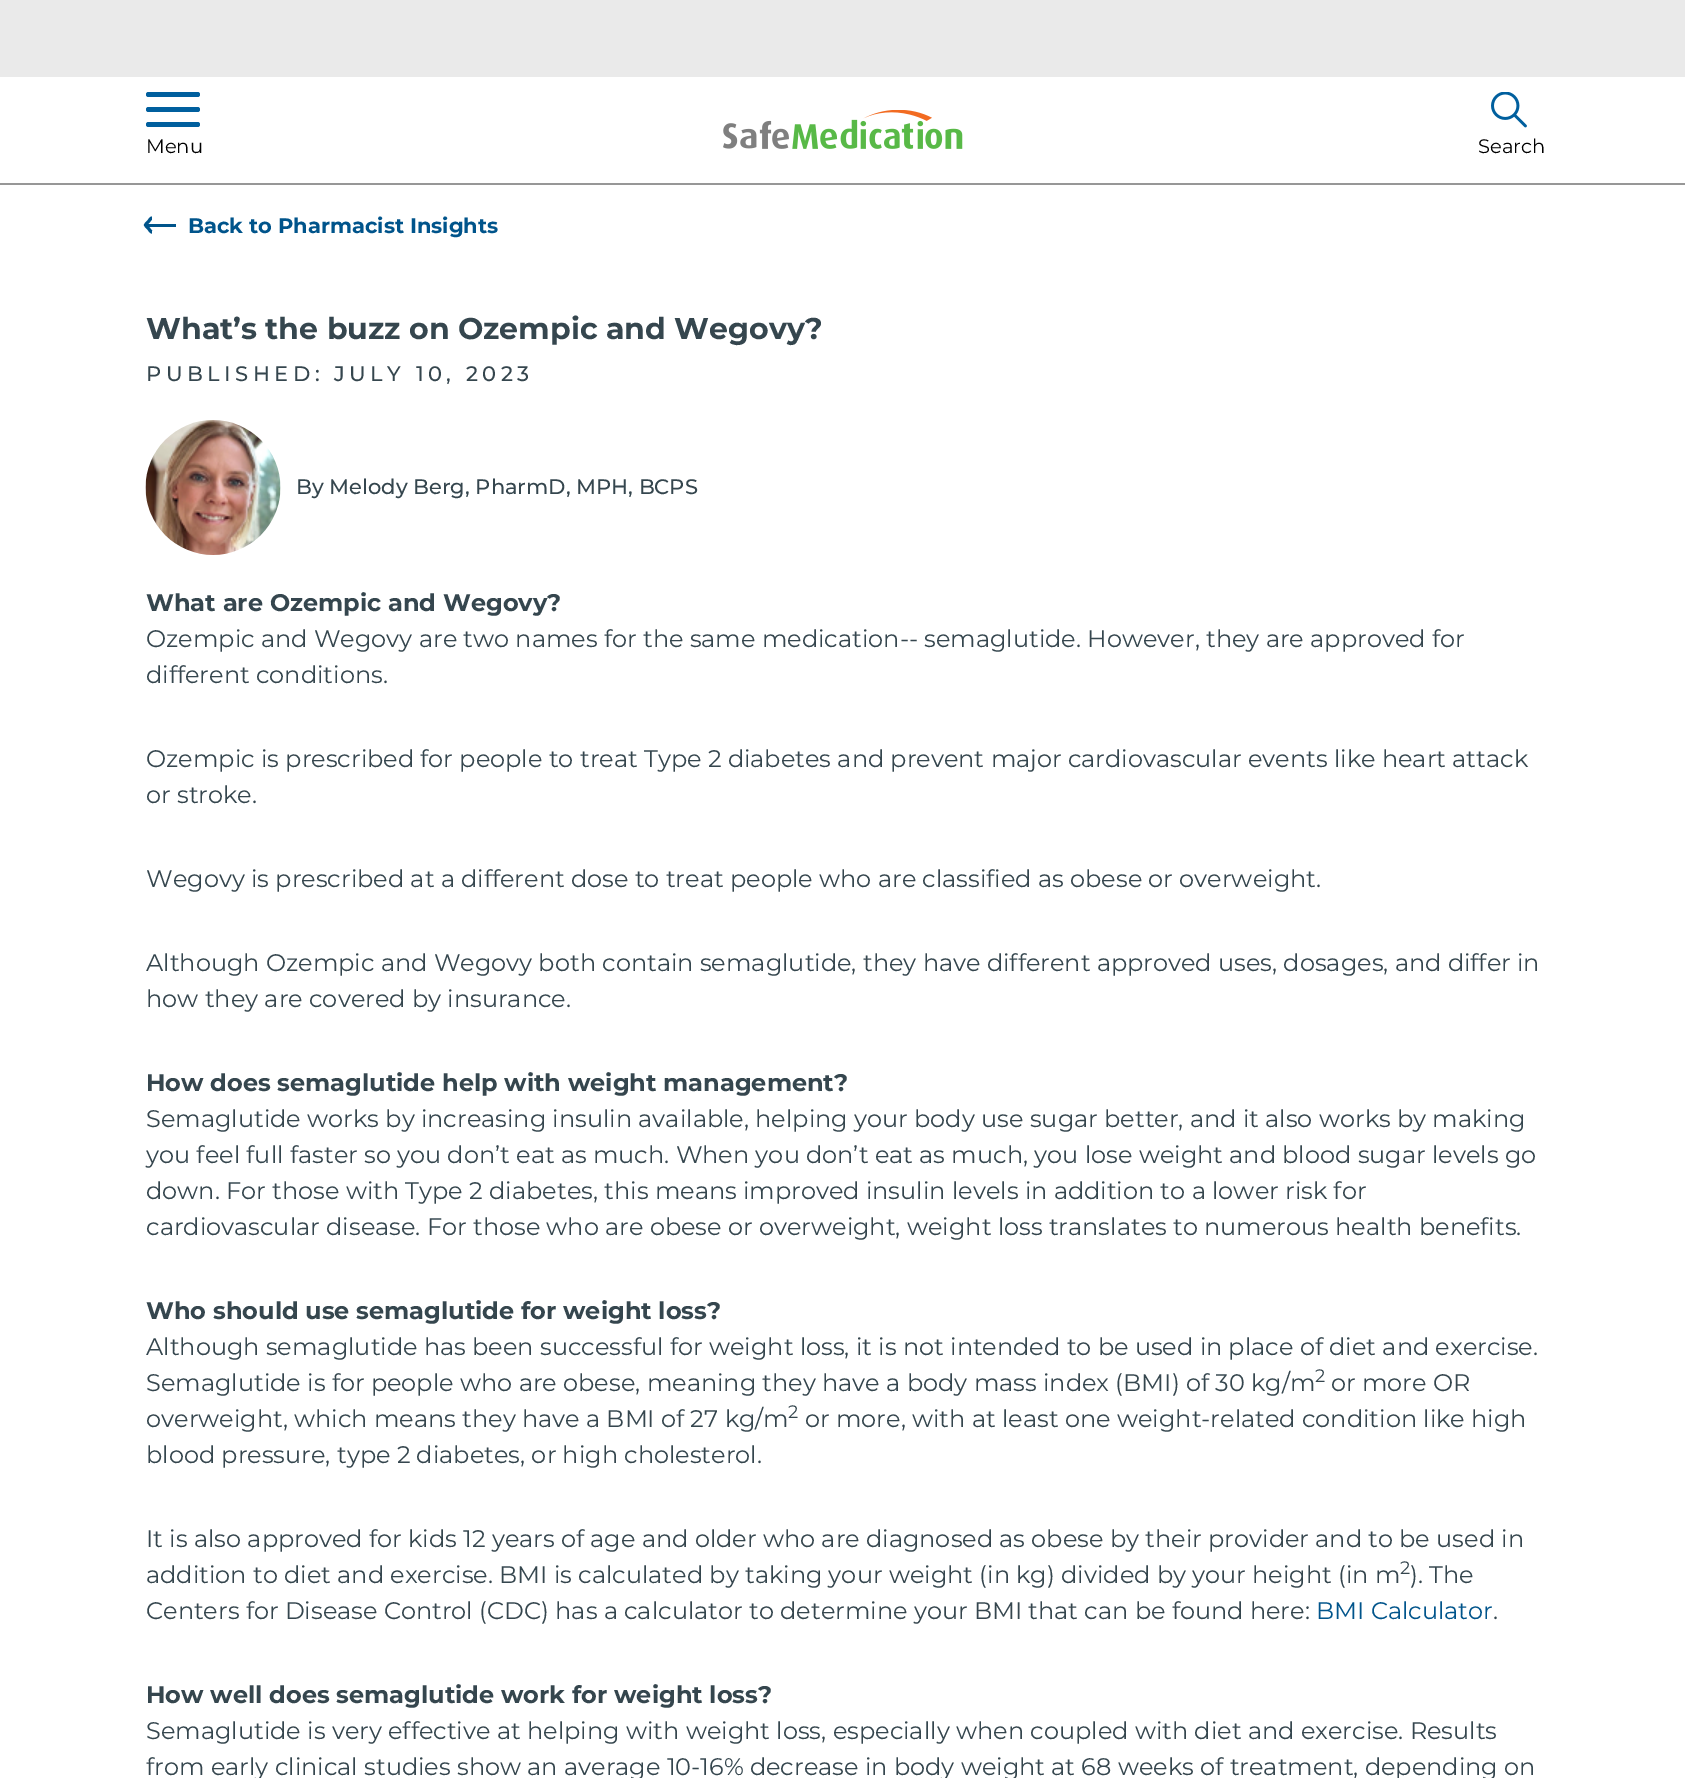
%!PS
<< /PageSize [1685 1778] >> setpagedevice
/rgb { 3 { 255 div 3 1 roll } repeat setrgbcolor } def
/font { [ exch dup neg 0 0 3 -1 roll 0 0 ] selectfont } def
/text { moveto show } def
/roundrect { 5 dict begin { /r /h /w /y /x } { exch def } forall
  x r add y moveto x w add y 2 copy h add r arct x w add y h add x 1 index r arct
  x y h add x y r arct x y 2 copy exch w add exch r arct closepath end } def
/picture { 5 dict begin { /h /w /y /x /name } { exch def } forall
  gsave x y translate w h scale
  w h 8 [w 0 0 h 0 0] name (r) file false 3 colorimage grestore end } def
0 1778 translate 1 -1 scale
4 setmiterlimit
255 255 255 rgb
0 0 1685 1778 rectfill
234 234 234 rgb
0 0 1685 77 rectfill
151 151 151 rgb
0 183 1685 2 rectfill
(img_01.rgb) 723 110 240 39 picture
0 95 158 rgb
146 92 54 5 2.5 roundrect fill
146 107 54 5 2.5 roundrect fill
146 122 54 5 2.5 roundrect fill
(img_02.rgb) 1491 92 36 36 picture
0 84 139 rgb
3 setlinewidth
152 232 moveto -1.5 0 -2.5 -2.5 -3.5 -3.5 rcurveto -4 -4 -4 -3 0 -7 rcurveto 1 -1 2 -3.5 3.5 -3.5 rcurveto stroke
146 224 30 3 rectfill
(img_03.rgb) 145 420 136 135 picture
/Montserrat-Regular 19.5 font
0 0 0 rgb
(Menu) 146 153 text
(Search) 1478 153 text
/Montserrat-Bold 21 font
0 84 139 rgb
(Back to Pharmacist Insights) 188 233 text
/Montserrat-Bold 30 font
53 70 78 rgb
(What’s the buzz on Ozempic and Wegovy?) 146 339 text
/Montserrat-Medium 21 font
146 381 moveto 4.5 0 (PUBLISHED: JULY 10, 2023) ashow
(By Melody Berg, PharmD, MPH, BCPS) 296 494 text
/Montserrat-Bold 24 font
(What are Ozempic and Wegovy?) 146 611 text
/Montserrat-Regular 24 font
(Ozempic and Wegovy are two names for the same medication-- semaglutide. However, they are approved for) 146 647 text
(different conditions.) 146 683 text
(Ozempic is prescribed for people to treat Type 2 diabetes and prevent major cardiovascular events like heart attack) 146 767 text
(or stroke.) 146 803 text
(Wegovy is prescribed at a different dose to treat people who are classified as obese or overweight.) 146 887 text
(Although Ozempic and Wegovy both contain semaglutide, they have different approved uses, dosages, and differ in) 146 971 text
(how they are covered by insurance.) 146 1007 text
/Montserrat-Bold 24 font
(How does semaglutide help with weight management?) 146 1091 text
/Montserrat-Regular 24 font
(Semaglutide works by increasing insulin available, helping your body use sugar better, and it also works by making) 146 1127 text
(you feel full faster so you don’t eat as much. When you don’t eat as much, you lose weight and blood sugar levels go) 146 1163 text
(down. For those with Type 2 diabetes, this means improved insulin levels in addition to a lower risk for) 146 1199 text
(cardiovascular disease. For those who are obese or overweight, weight loss translates to numerous health benefits.) 146 1235 text
/Montserrat-Bold 24 font
(Who should use semaglutide for weight loss?) 146 1319 text
/Montserrat-Regular 24 font
(Although semaglutide has been successful for weight loss, it is not intended to be used in place of diet and exercise.) 146 1355 text
(Semaglutide is for people who are obese, meaning they have a body mass index \(BMI\) of 30 kg/m) 146 1391 text
/Montserrat-Regular 18 font
(2) 1315 1382 text
/Montserrat-Regular 24 font
(or more OR) 1331 1391 text
(overweight, which means they have a BMI of 27 kg/m) 146 1427 text
/Montserrat-Regular 18 font
(2) 788 1418 text
/Montserrat-Regular 24 font
(or more, with at least one weight-related condition like high) 805 1427 text
(blood pressure, type 2 diabetes, or high cholesterol.) 146 1463 text
(It is also approved for kids 12 years of age and older who are diagnosed as obese by their provider and to be used in) 146 1547 text
(addition to diet and exercise. BMI is calculated by taking your weight \(in kg\) divided by your height \(in m) 146 1583 text
/Montserrat-Regular 18 font
(2) 1400 1574 text
/Montserrat-Regular 24 font
(\). The) 1410 1583 text
(Centers for Disease Control \(CDC\) has a calculator to determine your BMI that can be found here:) 146 1619 text
0 84 139 rgb
(BMI Calculator) 1316 1619 text
53 70 78 rgb
(.) 1493 1619 text
/Montserrat-Bold 24 font
(How well does semaglutide work for weight loss?) 146 1703 text
/Montserrat-Regular 24 font
(Semaglutide is very effective at helping with weight loss, especially when coupled with diet and exercise. Results) 146 1739 text
(from early clinical studies show an average 10-16% decrease in body weight at 68 weeks of treatment, depending on) 146 1775 text
showpage
